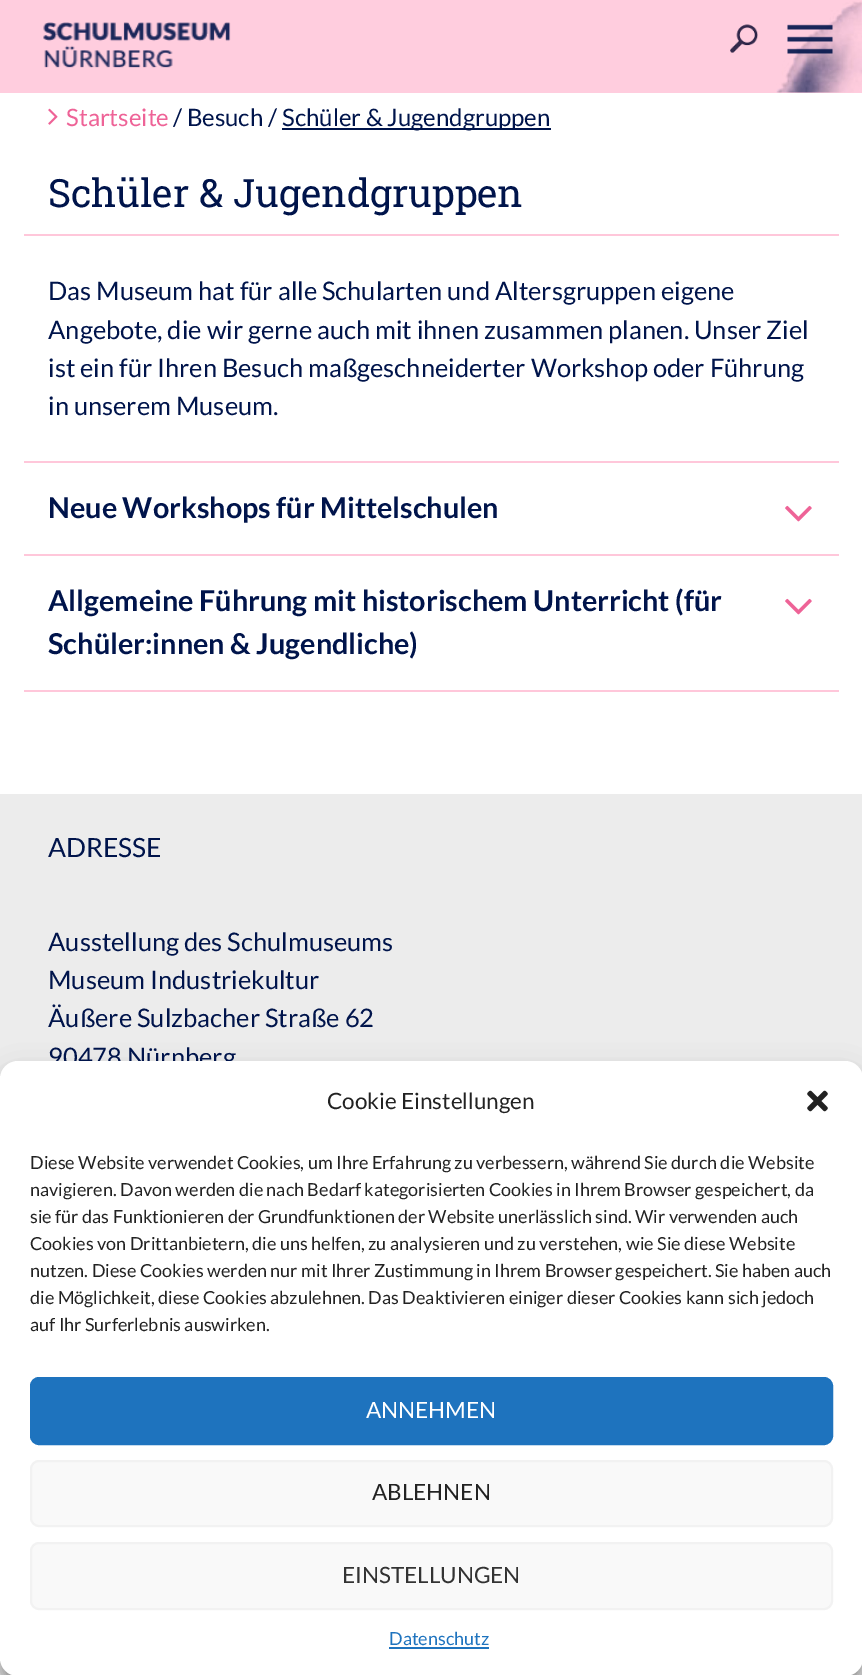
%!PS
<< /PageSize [862 1675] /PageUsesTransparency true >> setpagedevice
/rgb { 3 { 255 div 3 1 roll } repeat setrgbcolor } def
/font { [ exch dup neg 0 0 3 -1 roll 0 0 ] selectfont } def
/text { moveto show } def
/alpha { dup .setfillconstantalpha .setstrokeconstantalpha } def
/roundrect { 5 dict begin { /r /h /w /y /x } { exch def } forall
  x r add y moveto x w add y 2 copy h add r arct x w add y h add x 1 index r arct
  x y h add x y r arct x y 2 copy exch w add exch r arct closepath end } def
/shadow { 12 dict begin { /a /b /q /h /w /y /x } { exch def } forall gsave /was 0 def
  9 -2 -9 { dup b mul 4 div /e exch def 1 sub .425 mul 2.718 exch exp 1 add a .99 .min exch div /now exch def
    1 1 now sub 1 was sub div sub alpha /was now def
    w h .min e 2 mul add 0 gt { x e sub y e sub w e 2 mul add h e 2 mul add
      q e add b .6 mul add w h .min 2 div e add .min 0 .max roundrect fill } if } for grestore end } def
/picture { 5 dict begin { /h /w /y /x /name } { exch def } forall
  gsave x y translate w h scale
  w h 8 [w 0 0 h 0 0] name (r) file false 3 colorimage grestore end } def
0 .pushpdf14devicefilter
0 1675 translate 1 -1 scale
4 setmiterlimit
255 255 255 rgb
0 0 862 1675 rectfill
255 205 222 rgb
0 0 862 93 rectfill
(img_01.rgb) 776 1 86 92 picture
(img_02.rgb) 43 22 188 46 picture
(img_03.rgb) 730 24 28 29 picture
(img_04.rgb) 787 24 46 30 picture
(img_05.rgb) 48 108 10 17 picture
0 20 75 rgb
282 128 269 2 rectfill
255 199 218 rgb
24 234 815 2 rectfill
24 690 815 2 rectfill
24 461 815 2 rectfill
(img_06.rgb) 785 505 27 17 picture
24 554 815 2 rectfill
(img_06.rgb) 785 598 27 17 picture
236 236 236 rgb
0 794 862 881 rectfill
0 0 0 rgb
0 1070 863 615 18 4.5 0.23 shadow
0 1076 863 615 18 15 0.19 shadow
/Lato-Regular 24 font
238 99 151 rgb
(Startseite) 66 126 text
0 20 75 rgb
(/ Besuch /) 173 126 text
(Schüler & Jugendgruppen) 282 126 text
/RobotoSlab-Regular 39 font
(Schüler & Jugendgruppen) 48 207 text
/Lato-Regular 25.5 font
(Das Museum hat für alle Schularten und Altersgruppen eigene) 48 300 text
(Angebote, die wir gerne auch mit ihnen zusammen planen. Unser Ziel) 48 339 text
(ist ein für Ihren Besuch maßgeschneiderter Workshop oder Führung) 48 377 text
(in unserem Museum.) 48 415 text
/Lato-Bold 28.8 font
(Neue Workshops für Mittelschulen) 48 518 text
(Allgemeine Führung mit historischem Unterricht \(für) 48 611 text
(Schüler:innen & Jugendliche\)) 48 654 text
/Lato-Regular 26.5 font
(ADRESSE) 48 857 text
/Lato-Regular 25.5 font
(Ausstellung des Schulmuseums) 48 951 text
(Museum Industriekultur) 48 989 text
(Äußere Sulzbacher Straße 62) 48 1027 text
(90478 Nürnberg) 48 1066 text
255 255 255 rgb
0 1061 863 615 18 roundrect fill
/Lato-Regular 22.5 font
34 34 34 rgb
(Cookie Einstellungen) 327 1109 text
(img_07.rgb) 807 1090 21 22 picture
/Lato-Regular 18 font
(Diese Website verwendet Cookies, um Ihre Erfahrung zu verbessern, während Sie durch die Website) 30 1169 text
(navigieren. Davon werden die nach Bedarf kategorisierten Cookies in Ihrem Browser gespeichert, da) 30 1196 text
(sie für das Funktionieren der Grundfunktionen der Website unerlässlich sind. Wir verwenden auch) 30 1223 text
(Cookies von Drittanbietern, die uns helfen, zu analysieren und zu verstehen, wie Sie diese Website) 30 1250 text
(nutzen. Diese Cookies werden nur mit Ihrer Zustimmung in Ihrem Browser gespeichert. Sie haben auch) 30 1277 text
(die Möglichkeit, diese Cookies abzulehnen. Das Deaktivieren einiger dieser Cookies kann sich jedoch) 30 1304 text
(auf Ihr Surferlebnis auswirken.) 30 1331 text
30 115 190 rgb
31 1378 801 66 8 roundrect gsave fill grestore
2 setlinewidth
stroke
/Lato-Regular 22.5 font
255 255 255 rgb
(ANNEHMEN) 366 1418 text
249 249 249 rgb
31 1461 801 65 8 roundrect gsave fill grestore
242 242 242 rgb
stroke
34 34 34 rgb
(ABLEHNEN) 372 1500 text
249 249 249 rgb
31 1543 801 66 8 roundrect gsave fill grestore
242 242 242 rgb
stroke
51 51 51 rgb
(EINSTELLUNGEN) 342 1583 text
/Lato-Regular 18 font
30 115 190 rgb
(Datenschutz) 389 1645 text
389 1647 100 2 rectfill
.poppdf14devicefilter showpage
